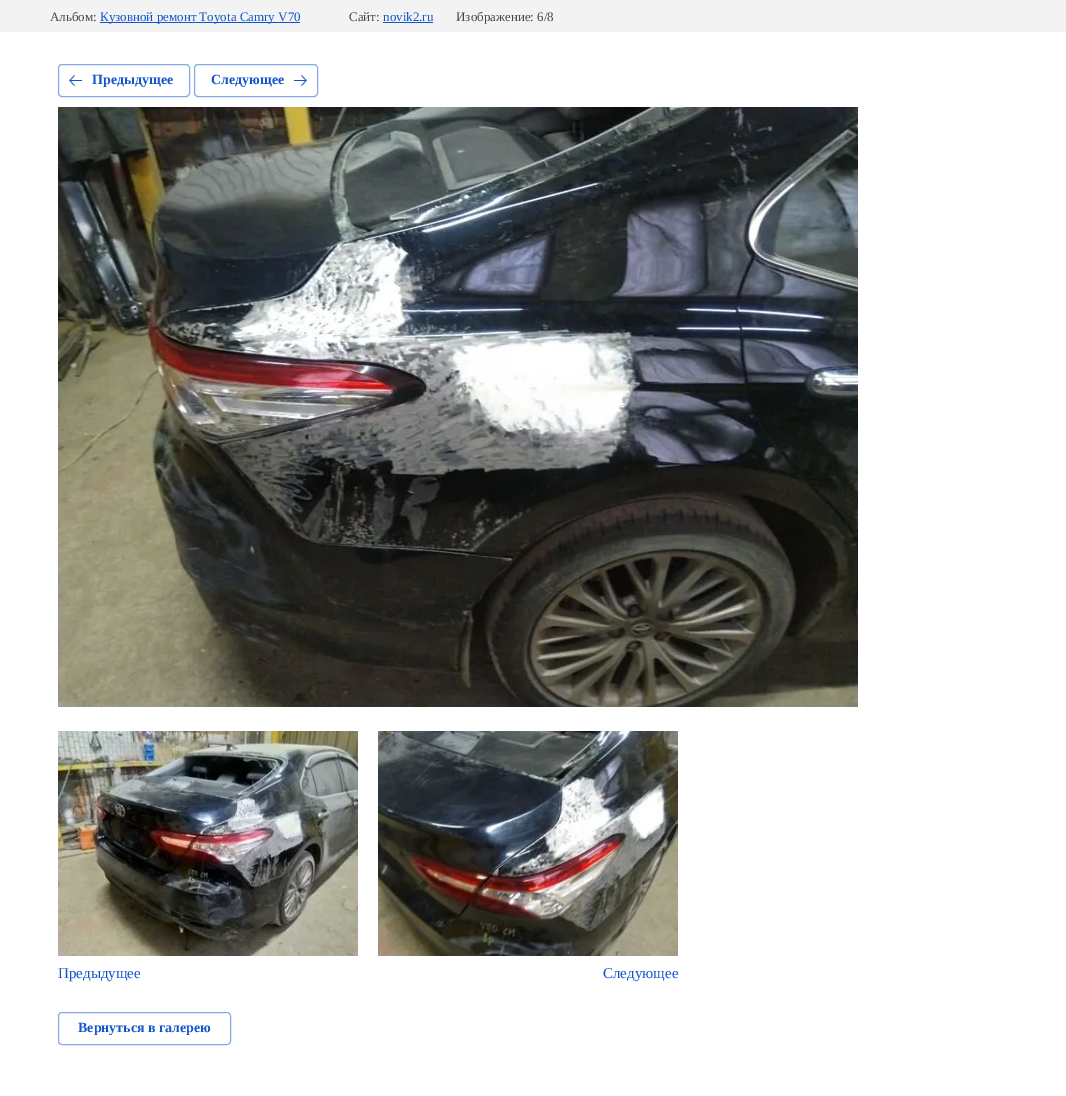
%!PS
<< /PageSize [1066 1096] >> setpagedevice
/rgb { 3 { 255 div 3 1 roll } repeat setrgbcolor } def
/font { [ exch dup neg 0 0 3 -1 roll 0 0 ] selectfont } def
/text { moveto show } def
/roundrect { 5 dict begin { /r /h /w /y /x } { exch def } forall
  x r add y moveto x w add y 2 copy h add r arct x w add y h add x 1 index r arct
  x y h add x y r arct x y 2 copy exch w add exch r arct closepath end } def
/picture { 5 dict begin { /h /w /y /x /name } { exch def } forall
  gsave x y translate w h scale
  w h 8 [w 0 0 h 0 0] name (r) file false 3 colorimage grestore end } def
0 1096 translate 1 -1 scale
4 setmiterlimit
255 255 255 rgb
0 0 1066 1096 rectfill
243 243 243 rgb
0 0 1066 32 rectfill
17 85 204 rgb
100 22 200 1 rectfill
383 22 50 1 rectfill
136 170 230 rgb
58.5 64.5 131 32 3.5 roundrect stroke
(img_01.rgb) 69 75 13 11 picture
194.5 64.5 123 32 3.5 roundrect stroke
(img_02.rgb) 294 75 13 11 picture
(img_03.rgb) 58 107 800 600 picture
(img_04.rgb) 58 731 300 225 picture
(img_05.rgb) 378 731 300 225 picture
58.5 1012.5 172 32 3.5 roundrect stroke
/LiberationSerif-Regular 13 font
72 72 72 rgb
(Альбом:) 50 21 text
17 85 204 rgb
(Кузовной ремонт Toyota Camry V70) 100 21 text
72 72 72 rgb
(Сайт:) 349 21 text
17 85 204 rgb
(novik2.ru) 383 21 text
72 72 72 rgb
(Изображение: 6/8) 456 21 text
/LiberationSerif-Bold 14 font
17 85 204 rgb
(Предыдущее) 92 84 text
(Следующее) 211 84 text
/LiberationSerif-Regular 15 font
(Предыдущее) 58 978 text
(Следующее) 603 978 text
/LiberationSerif-Bold 14 font
(Вернуться в галерею) 78 1032 text
showpage
